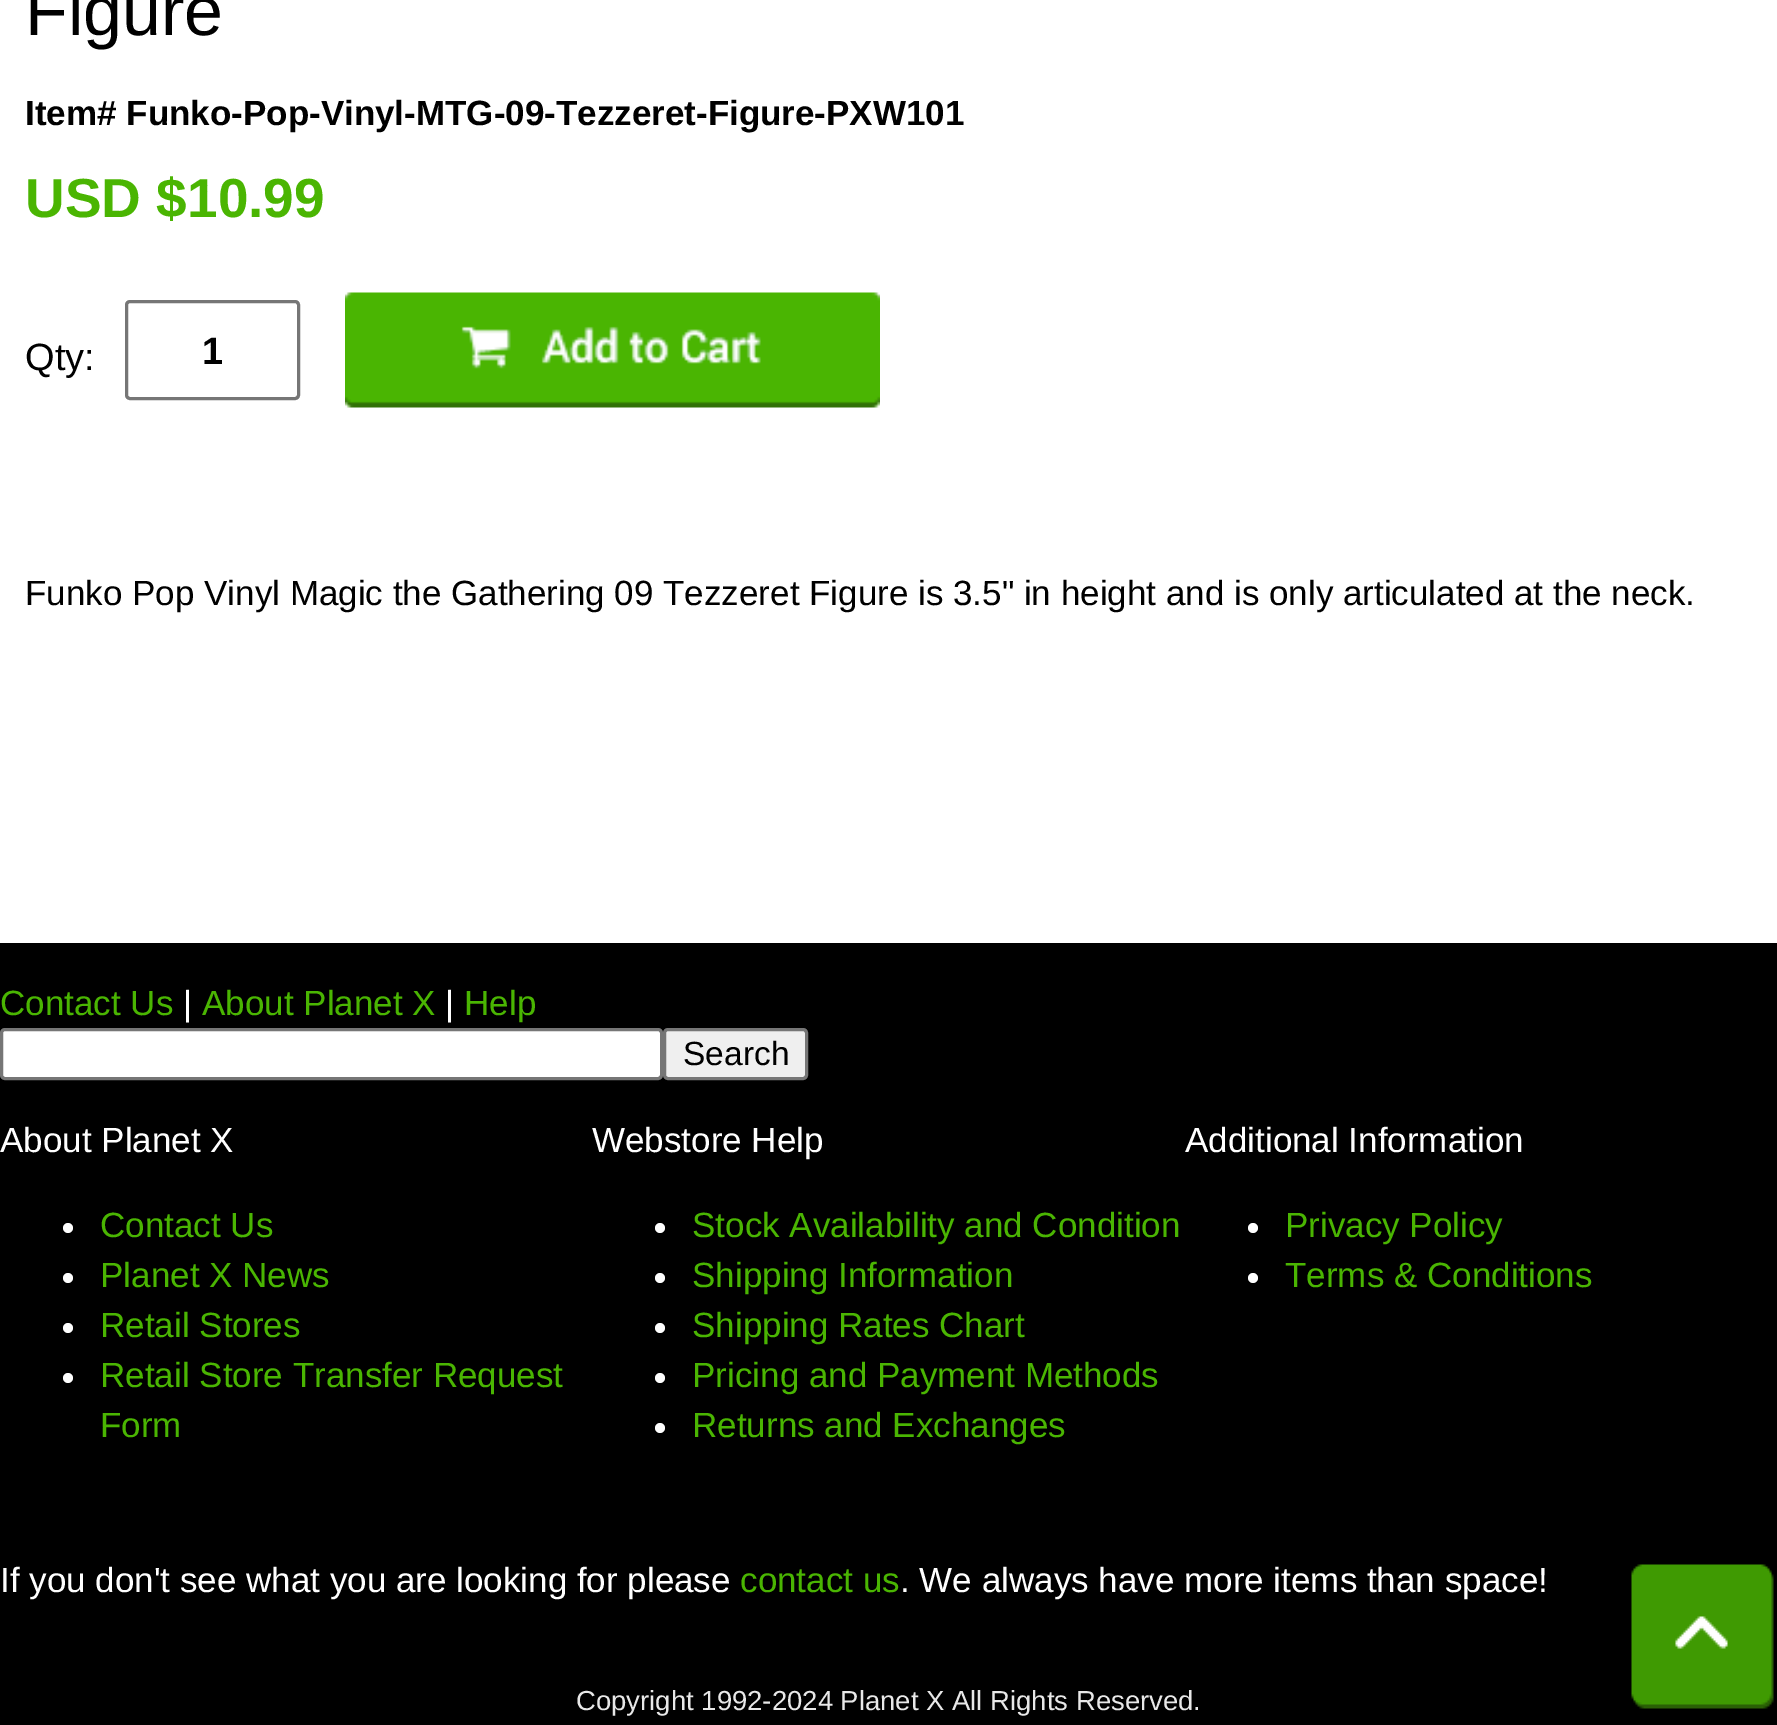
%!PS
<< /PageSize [1777 1725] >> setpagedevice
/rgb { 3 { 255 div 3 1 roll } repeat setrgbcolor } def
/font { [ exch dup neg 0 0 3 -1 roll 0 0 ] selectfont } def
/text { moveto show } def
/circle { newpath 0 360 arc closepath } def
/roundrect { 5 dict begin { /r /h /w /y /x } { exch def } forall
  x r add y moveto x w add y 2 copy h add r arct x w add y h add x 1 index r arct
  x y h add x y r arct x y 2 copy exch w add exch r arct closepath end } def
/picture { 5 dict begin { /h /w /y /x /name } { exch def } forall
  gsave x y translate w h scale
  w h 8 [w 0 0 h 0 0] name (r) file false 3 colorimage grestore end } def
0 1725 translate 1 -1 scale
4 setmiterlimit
255 255 255 rgb
0 0 1777 1725 rectfill
118 118 118 rgb
3 setlinewidth
126.5 301.5 172 97 3.5 roundrect stroke
(img_01.rgb) 345 292 535 116 picture
0 0 0 rgb
0 943 1777 782 rectfill
255 255 255 rgb
1.5 1029.5 660 49 3.5 roundrect gsave fill grestore
118 118 118 rgb
stroke
239 239 239 rgb
664.5 1029.5 142 49 3.5 roundrect gsave fill grestore
118 118 118 rgb
stroke
255 255 255 rgb
68 1228 5 circle fill
68 1278 5 circle fill
68 1328 5 circle fill
68 1378 5 circle fill
660 1228 5 circle fill
660 1278 5 circle fill
660 1328 5 circle fill
660 1378 5 circle fill
660 1428 5 circle fill
1253 1228 5 circle fill
1253 1278 5 circle fill
(img_02.rgb) 1631 1564 143 145 picture
/LiberationSans-Regular 70 font
0 0 0 rgb
(Figure) 25 35 text
/LiberationSans-Bold 35 font
(Item# Funko-Pop-Vinyl-MTG-09-Tezzeret-Figure-PXW101) 25 125 text
/LiberationSans-Bold 55 font
74 181 2 rgb
(USD $10.99) 25 217 text
/LiberationSans-Regular 38 font
0 0 0 rgb
(Qty:) 25 370 text
/LiberationSans-Bold 38 font
(1) 202 364 text
/LiberationSans-Regular 35 font
(Funko Pop Vinyl Magic the Gathering 09 Tezzeret Figure is 3.5" in height and is only articulated at the neck.) 25 605 text
74 181 2 rgb
(Contact Us) 0 1015 text
255 255 255 rgb
(|) 183 1015 text
74 181 2 rgb
(About Planet X) 202 1015 text
255 255 255 rgb
(|) 445 1015 text
74 181 2 rgb
(Help) 464 1015 text
/LiberationSans-Regular 33.5 font
0 0 0 rgb
(Search) 683 1065 text
/LiberationSans-Regular 35 font
255 255 255 rgb
(About Planet X) 0 1152 text
74 181 2 rgb
(Contact Us) 100 1237 text
(Planet X News) 100 1287 text
(Retail Stores) 100 1337 text
(Retail Store Transfer Request) 100 1387 text
(Form) 100 1437 text
255 255 255 rgb
(Webstore Help) 592 1152 text
74 181 2 rgb
(Stock Availability and Condition) 692 1237 text
(Shipping Information) 692 1287 text
(Shipping Rates Chart) 692 1337 text
(Pricing and Payment Methods) 692 1387 text
(Returns and Exchanges) 692 1437 text
255 255 255 rgb
(Additional Information) 1185 1152 text
74 181 2 rgb
(Privacy Policy) 1285 1237 text
(Terms & Conditions) 1285 1287 text
255 255 255 rgb
(If you don't see what you are looking for please) 0 1592 text
74 181 2 rgb
(contact us) 740 1592 text
255 255 255 rgb
(. We always have more items than space!) 900 1592 text
/LiberationSans-Regular 27.5 font
232 232 232 rgb
(Copyright 1992-2024 Planet X All Rights Reserved.) 576 1710 text
showpage
